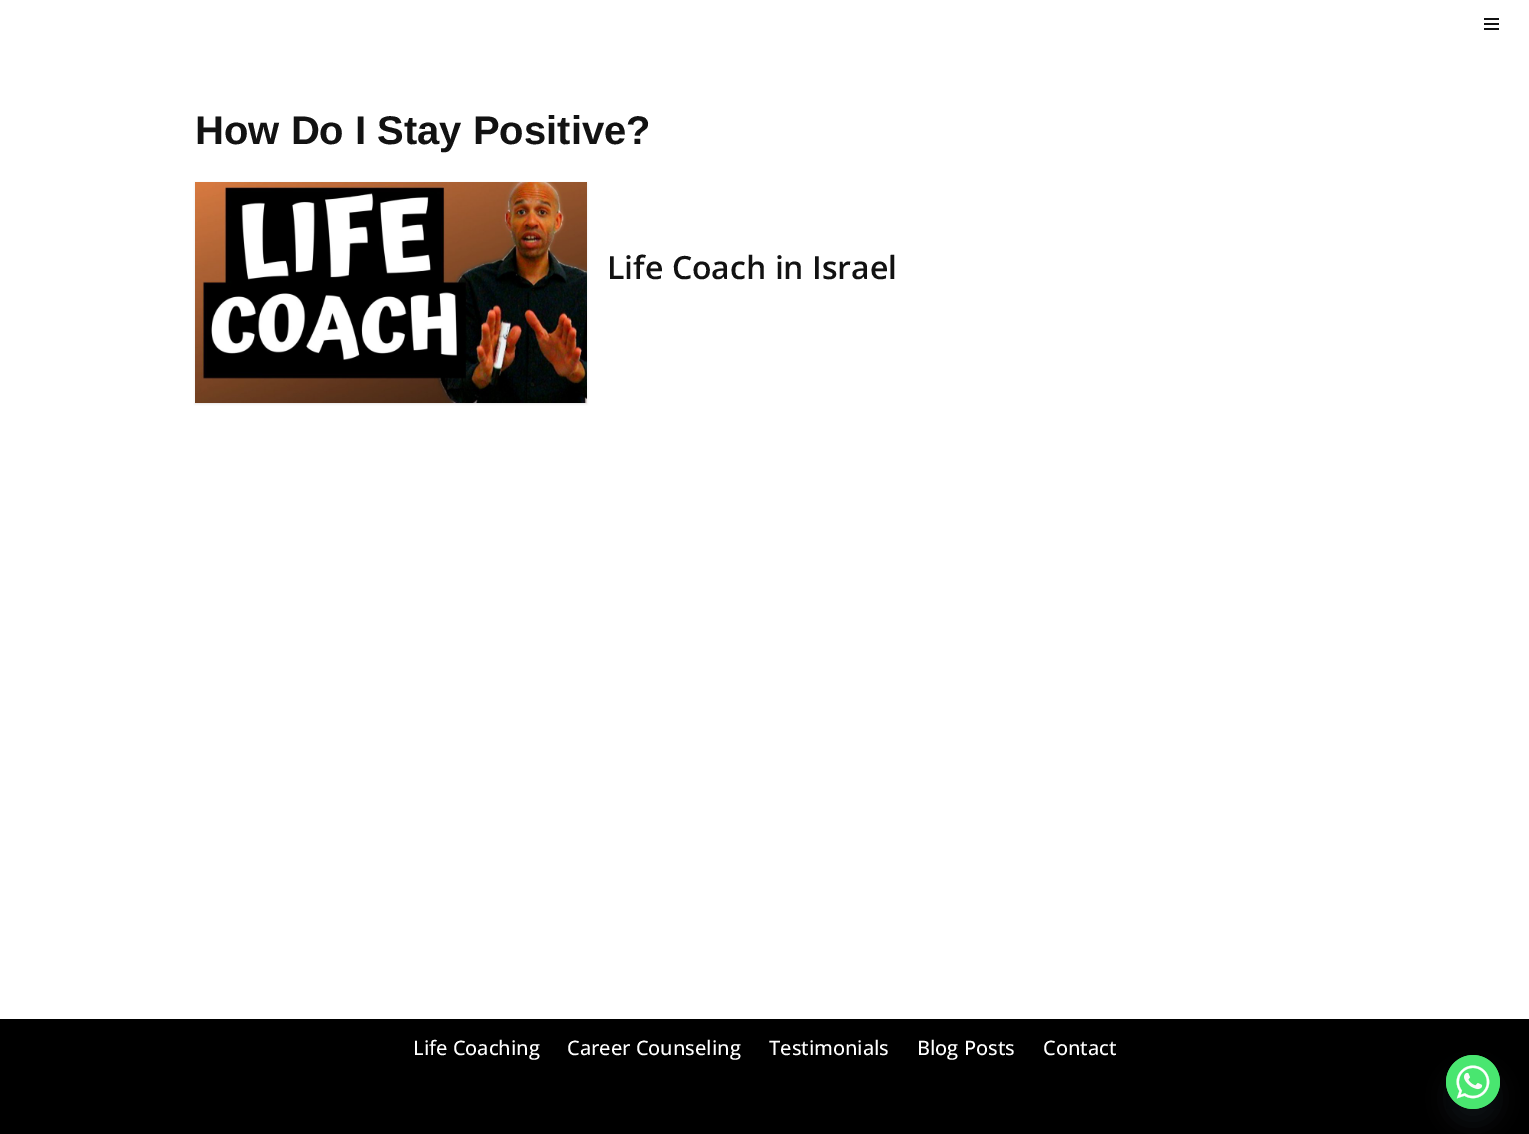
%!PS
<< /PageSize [1529 1134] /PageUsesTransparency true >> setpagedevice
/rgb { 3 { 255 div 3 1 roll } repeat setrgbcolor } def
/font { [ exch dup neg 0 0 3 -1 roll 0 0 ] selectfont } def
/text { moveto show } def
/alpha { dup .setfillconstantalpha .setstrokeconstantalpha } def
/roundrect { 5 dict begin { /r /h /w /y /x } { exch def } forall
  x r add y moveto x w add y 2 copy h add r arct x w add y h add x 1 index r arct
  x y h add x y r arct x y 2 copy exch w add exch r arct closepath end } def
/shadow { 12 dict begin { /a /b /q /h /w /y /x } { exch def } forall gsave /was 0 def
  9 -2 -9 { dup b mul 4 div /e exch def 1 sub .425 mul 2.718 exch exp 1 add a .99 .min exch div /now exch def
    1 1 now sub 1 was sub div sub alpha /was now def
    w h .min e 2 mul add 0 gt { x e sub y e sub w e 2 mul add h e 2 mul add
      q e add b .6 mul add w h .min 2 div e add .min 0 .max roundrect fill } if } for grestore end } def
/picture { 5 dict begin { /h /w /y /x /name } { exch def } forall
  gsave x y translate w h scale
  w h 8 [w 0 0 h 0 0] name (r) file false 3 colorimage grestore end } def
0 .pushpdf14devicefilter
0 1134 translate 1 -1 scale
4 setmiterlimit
255 255 255 rgb
0 0 1529 1134 rectfill
18 18 18 rgb
1484 18 15 2 rectfill
1484 23 15 2 rectfill
1484 28 15 2 rectfill
0 0 0 rgb
195 183 392 221 0 1 0.1 shadow
(img_01.rgb) 195 182 392 221 picture
0 1019 1529 115 rectfill
73 104 126 rgb
1446 1071 54 54 27 12 0.16 shadow
(img_02.rgb) 1446 1055 54 54 picture
/LiberationSans-Bold 40 font
18 18 18 rgb
(How Do I Stay Positive?) 195 144 text
/OpenSans-SemiBold 32 font
(Life Coach in Israel) 607 279 text
/OpenSans-Medium 20 font
255 255 255 rgb
(Life Coaching) 413 1055 text
(Career Counseling) 567 1055 text
(Testimonials) 769 1055 text
(Blog Posts) 917 1055 text
(Contact) 1043 1055 text
.poppdf14devicefilter showpage
